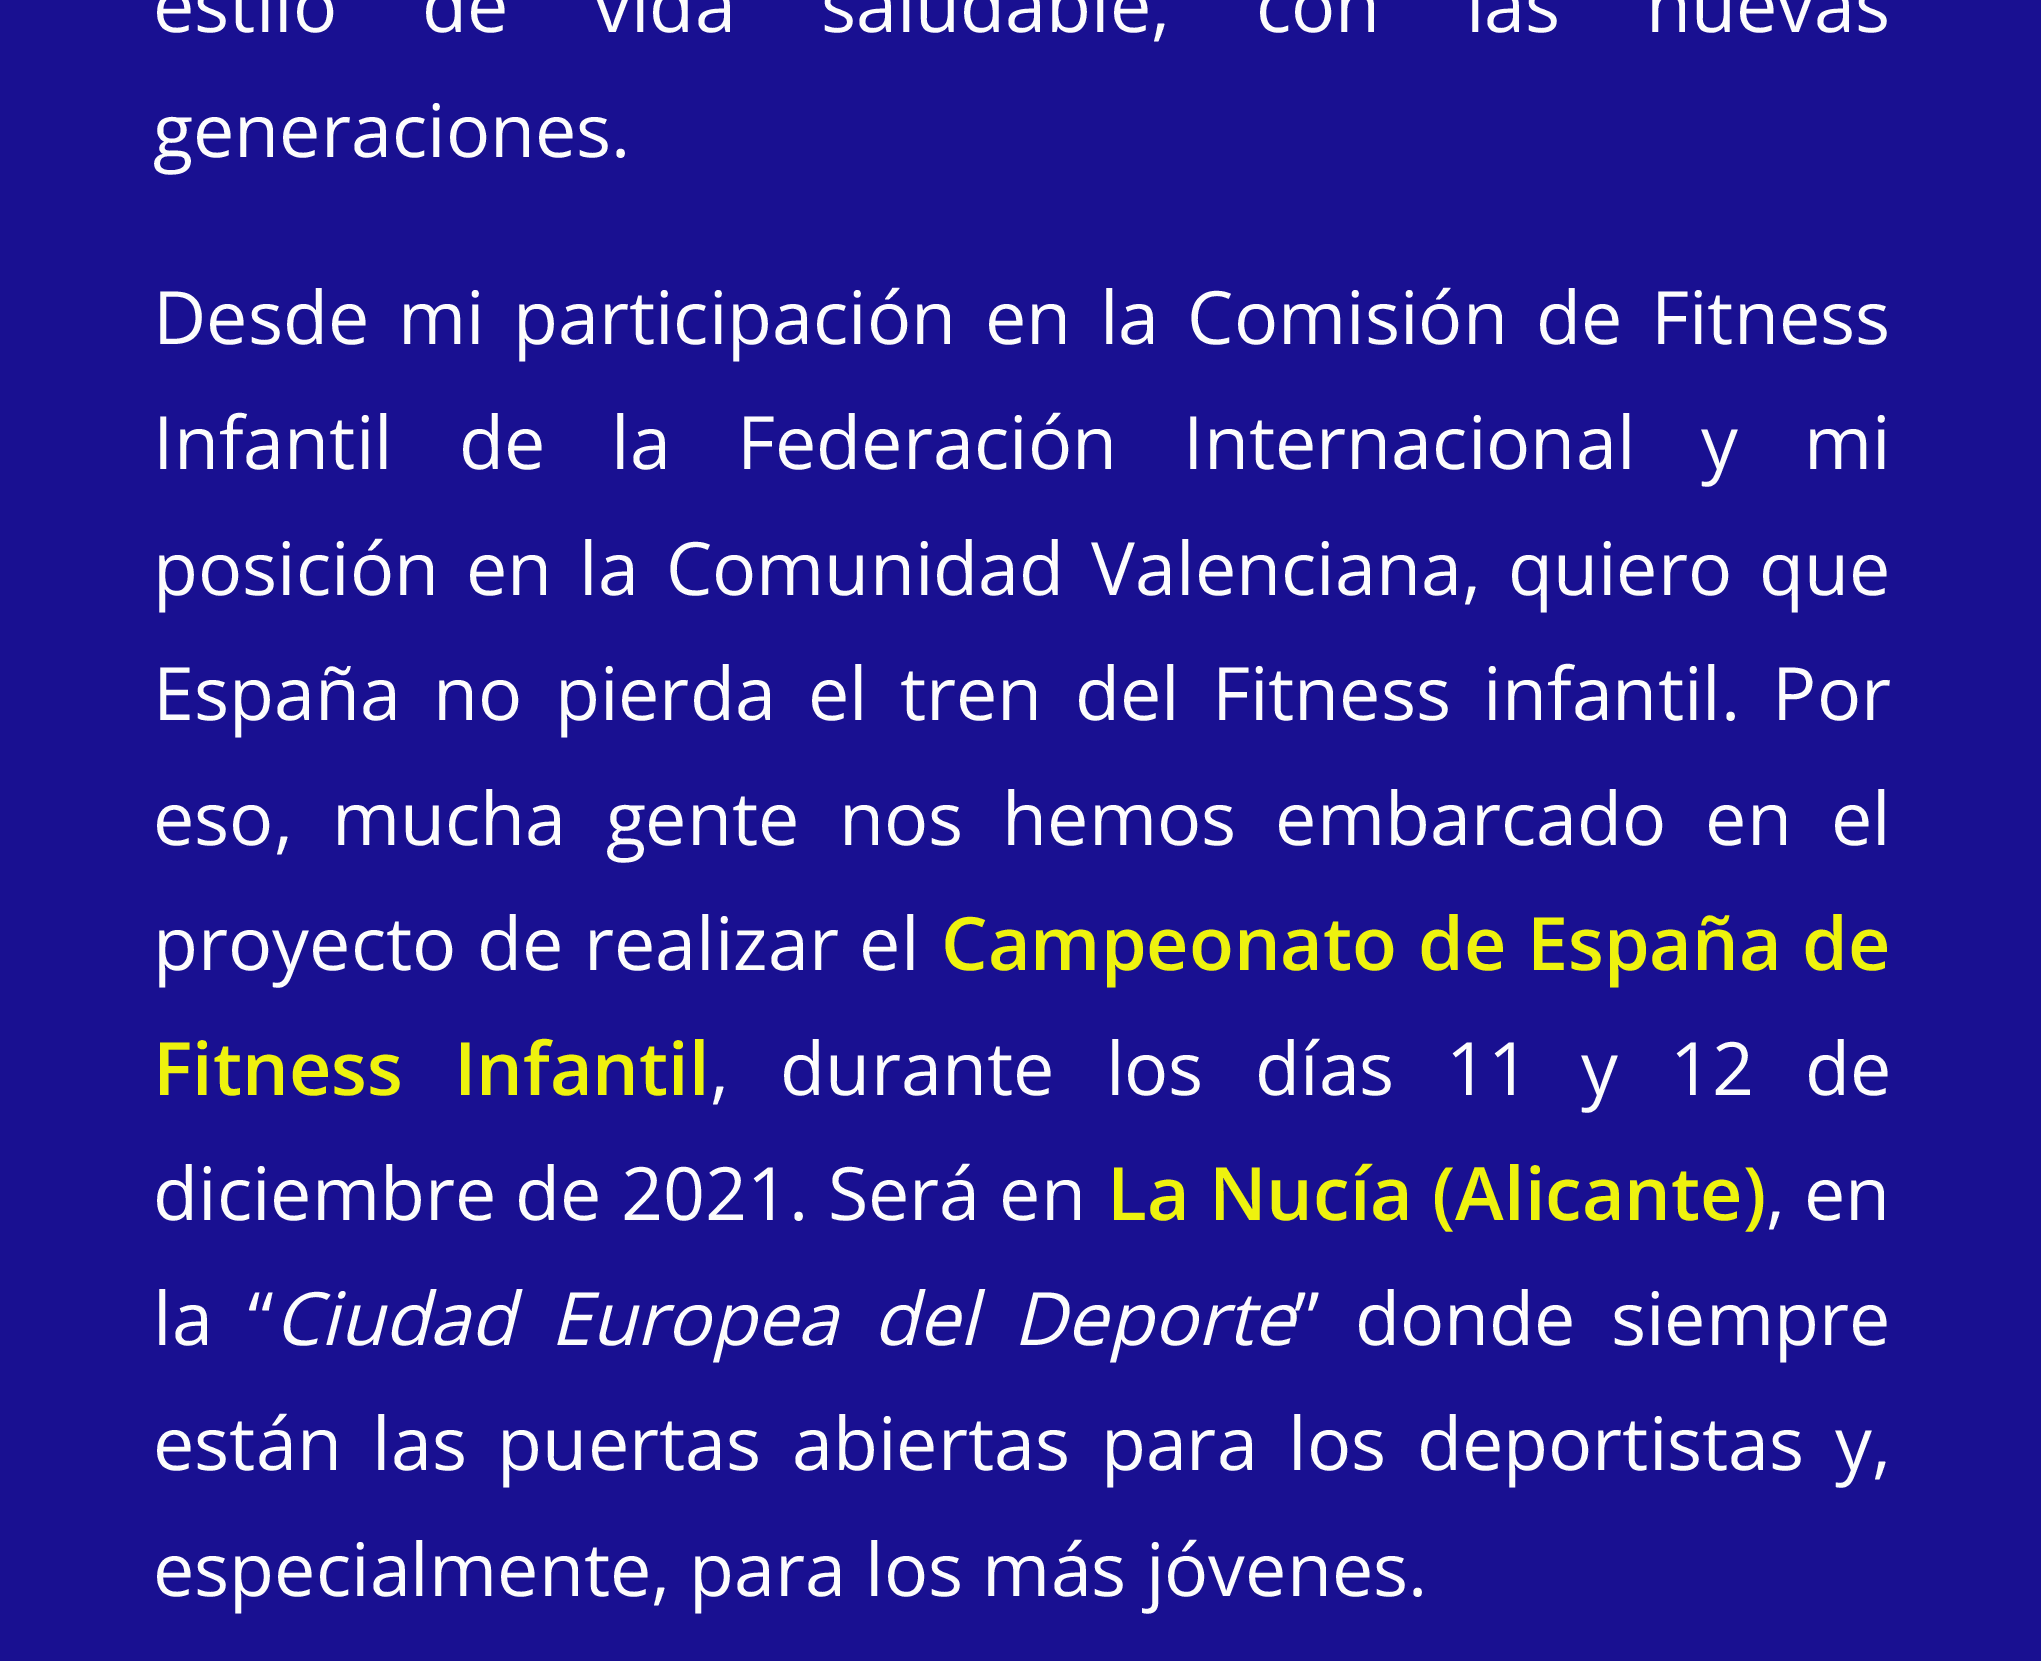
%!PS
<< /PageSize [2041 1661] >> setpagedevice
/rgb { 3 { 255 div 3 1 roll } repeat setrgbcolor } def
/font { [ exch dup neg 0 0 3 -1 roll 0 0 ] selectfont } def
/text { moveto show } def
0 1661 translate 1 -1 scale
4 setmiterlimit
25 16 145 rgb
0 0 2041 1661 rectfill
/OpenSans-Regular 73.6 font
252 252 252 rgb
153 32 moveto 66.25 0 32 (estilo de vida saludable, con las nuevas) widthshow
(generaciones.) 153 157 text
153 344 moveto 9.25 0 32 (Desde mi participación en la Comisión de Fitness) widthshow
153 469 moveto 47 0 32 (Infantil de la Federación Internacional y mi) widthshow
153 595 moveto 7.75 0 32 (posición en la Comunidad Valenciana, quiero que) widthshow
153 720 moveto 13 0 32 (España no pierda el tren del Fitness infantil. Por) widthshow
153 845 moveto 20 0 32 (eso, mucha gente nos hemos embarcado en el) widthshow
153 970 moveto 1.5 0 32 (proyecto de realizar el) widthshow
/OpenSans-SemiBold 73.6 font
238 242 14 rgb
941 970 moveto 1.5 0 32 (Campeonato de España de) widthshow
153 1095 moveto 32 0 32 (Fitness Infantil) widthshow
/OpenSans-Regular 73.6 font
252 252 252 rgb
710 1095 moveto 32.25 0 32 (, durante los días 11 y 12 de) widthshow
(diciembre de 2021. Será en) 153 1220 text
/OpenSans-SemiBold 73.6 font
238 242 14 rgb
(La Nucía \(Alicante\)) 1107 1220 text
/OpenSans-Regular 73.6 font
252 252 252 rgb
(, en) 1766 1220 text
153 1345 moveto 16 0 32 (la “) widthshow
/OpenSans-Italic 73.6 font
274 1345 moveto 16 0 32 (Ciudad Europea del Deporte) widthshow
/OpenSans-Regular 73.6 font
1294 1345 moveto 16 0 32 (” donde siempre) widthshow
153 1470 moveto 11.5 0 32 (están las puertas abiertas para los deportistas y,) widthshow
(especialmente, para los más jóvenes.) 153 1596 text
showpage
